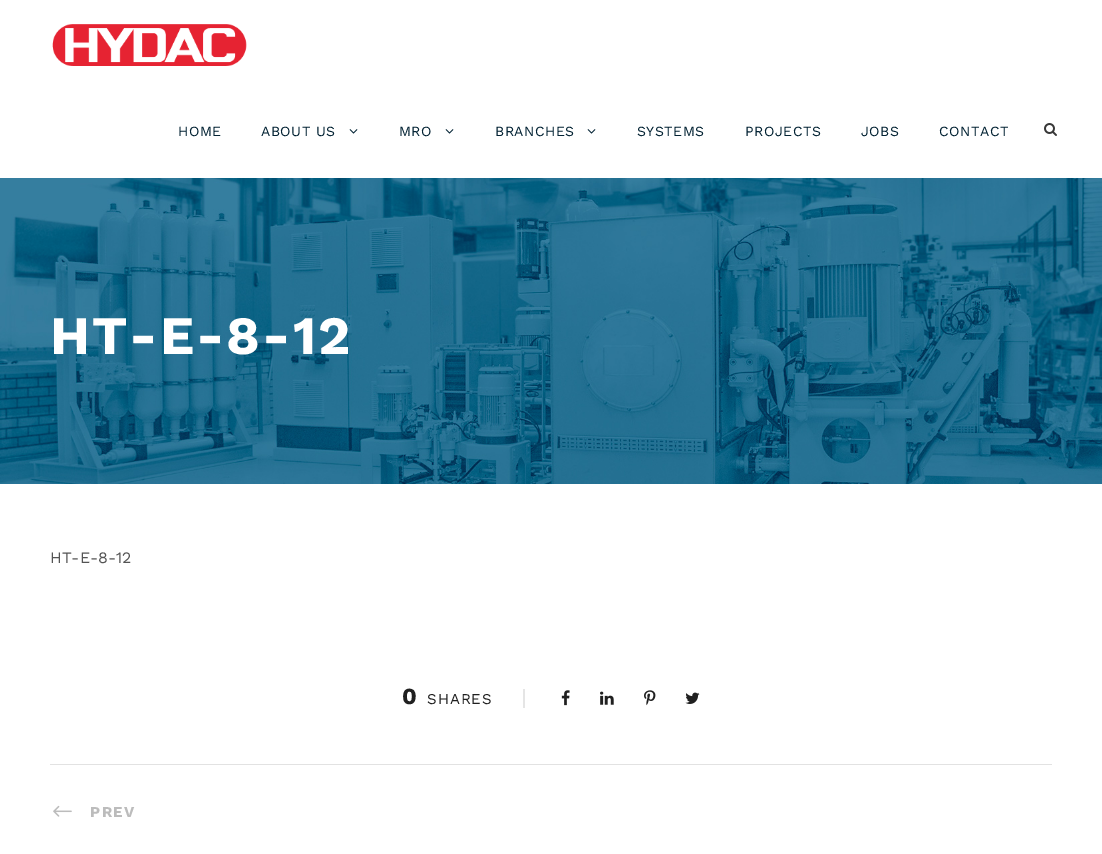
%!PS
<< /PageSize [1102 854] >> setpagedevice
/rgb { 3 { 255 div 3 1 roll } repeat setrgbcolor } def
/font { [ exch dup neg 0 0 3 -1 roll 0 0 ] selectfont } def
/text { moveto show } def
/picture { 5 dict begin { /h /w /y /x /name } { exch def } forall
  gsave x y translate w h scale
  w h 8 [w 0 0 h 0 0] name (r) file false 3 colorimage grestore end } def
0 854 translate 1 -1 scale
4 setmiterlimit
255 255 255 rgb
0 0 1102 854 rectfill
(img_01.rgb) 52 24 195 42 picture
(img_02.rgb) 349 129 9 5 picture
(img_02.rgb) 445 129 9 5 picture
(img_02.rgb) 587 129 9 5 picture
(img_03.rgb) 1044 123 13 13 picture
(img_04.rgb) 0 178 1102 306 picture
229 229 229 rgb
523 689 2 19 rectfill
(img_05.rgb) 561 690 9 16 picture
(img_06.rgb) 600 691 14 14 picture
(img_07.rgb) 644 690 12 16 picture
(img_08.rgb) 685 692 15 12 picture
226 226 226 rgb
50 764 1002 1 rectfill
(img_09.rgb) 53 805 19 12 picture
/WorkSans-Regular 14 font
2 34 51 rgb
178 136 moveto 0.5 0 (HOME) ashow
261 136 moveto 0.5 0 (ABOUT US) ashow
399 136 moveto 0.5 0 (MRO) ashow
495 136 moveto 0.5 0 (BRANCHES) ashow
637 136 moveto 0.5 0 (SYSTEMS) ashow
745 136 moveto 0.5 0 (PROJECTS) ashow
861 136 moveto 0.5 0 (JOBS) ashow
939 136 moveto 0.5 0 (CONTACT) ashow
/WorkSans-Bold 54 font
255 255 255 rgb
50 354 moveto 2 0 (HT-E-8-12) ashow
/WorkSans-Regular 16 font
84 84 84 rgb
(HT-E-8-12) 50 563 text
/WorkSans-Bold 23 font
32 32 32 rgb
(0) 402 704 text
/WorkSans-Regular 15 font
427 704 moveto 1 0 (SHARES) ashow
/WorkSans-Bold 15 font
188 188 188 rgb
90 817 moveto 1.5 0 (PREV) ashow
showpage
